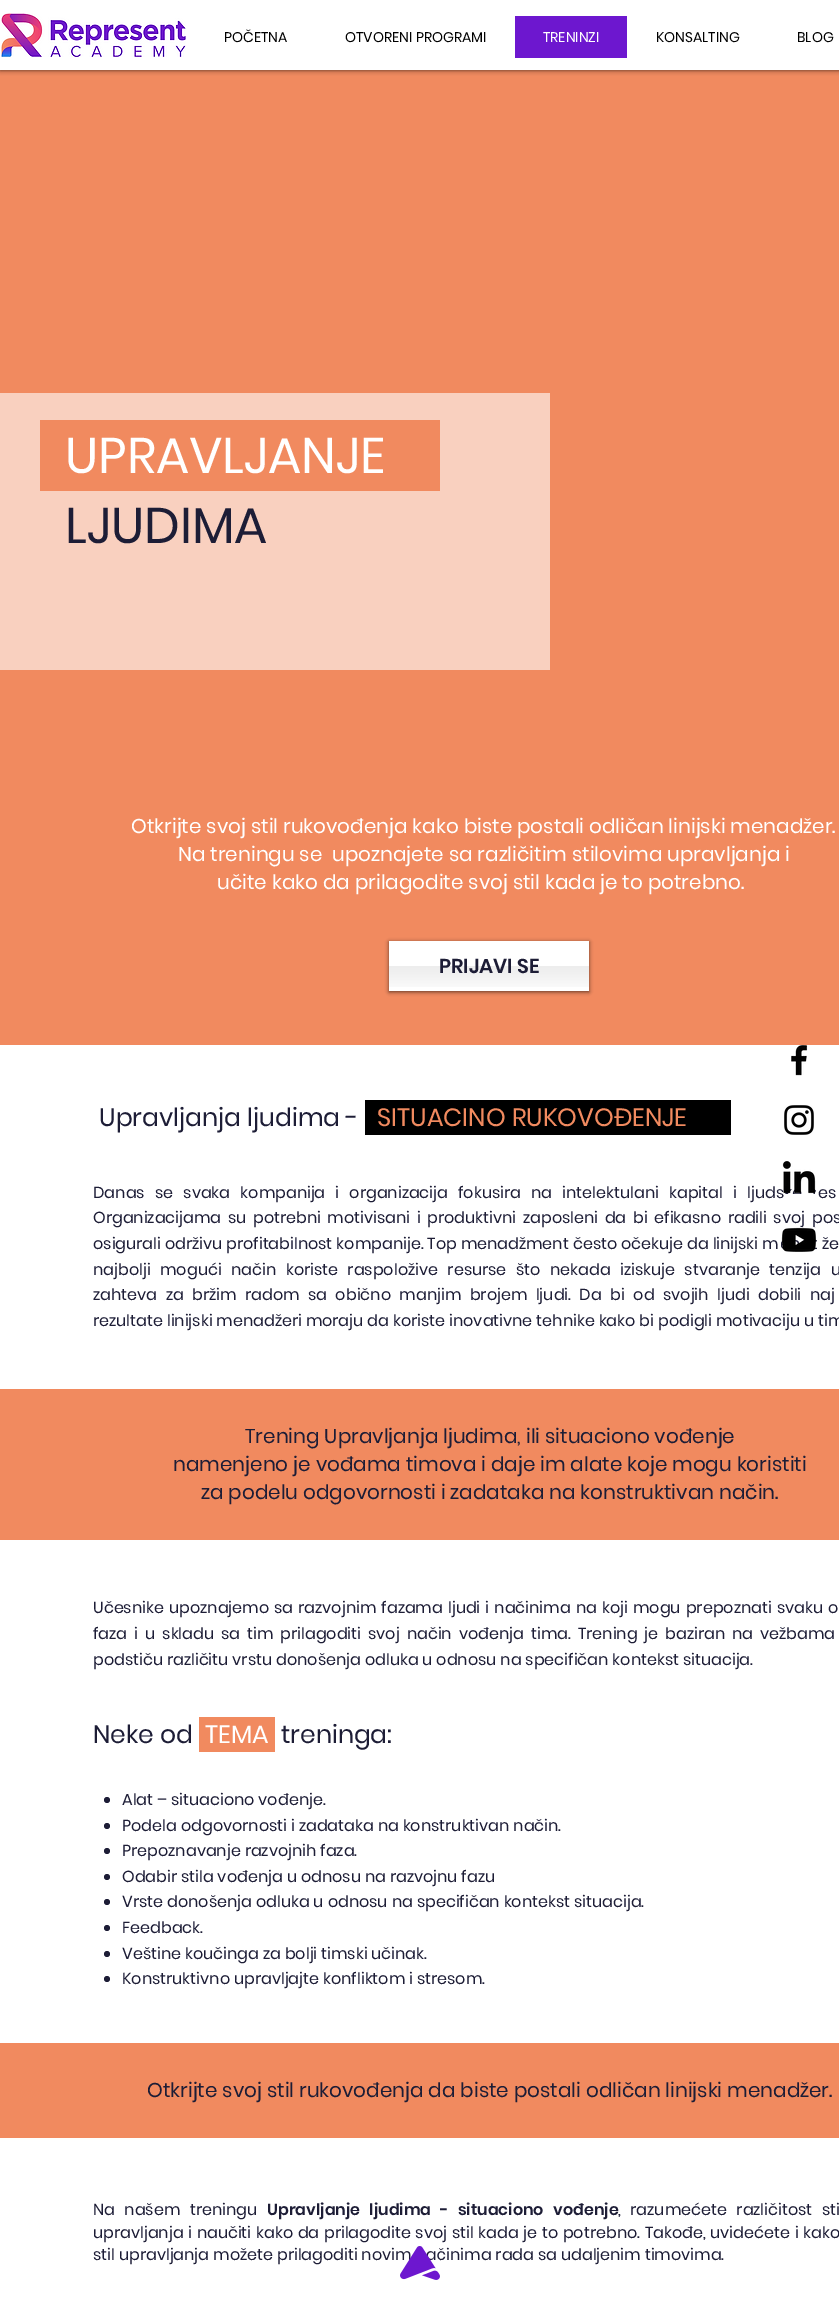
%!PS
<< /PageSize [839 2300] /PageUsesTransparency true >> setpagedevice
/rgb { 3 { 255 div 3 1 roll } repeat setrgbcolor } def
/font { [ exch dup neg 0 0 3 -1 roll 0 0 ] selectfont } def
/text { moveto show } def
/alpha { dup .setfillconstantalpha .setstrokeconstantalpha } def
/circle { newpath 0 360 arc closepath } def
/roundrect { 5 dict begin { /r /h /w /y /x } { exch def } forall
  x r add y moveto x w add y 2 copy h add r arct x w add y h add x 1 index r arct
  x y h add x y r arct x y 2 copy exch w add exch r arct closepath end } def
/shadow { 12 dict begin { /a /b /q /h /w /y /x } { exch def } forall gsave /was 0 def
  9 -2 -9 { dup b mul 4 div /e exch def 1 sub .425 mul 2.718 exch exp 1 add a .99 .min exch div /now exch def
    1 1 now sub 1 was sub div sub alpha /was now def
    w h .min e 2 mul add 0 gt { x e sub y e sub w e 2 mul add h e 2 mul add
      q e add b .6 mul add w h .min 2 div e add .min 0 .max roundrect fill } if } for grestore end } def
/picture { 5 dict begin { /h /w /y /x /name } { exch def } forall
  gsave x y translate w h scale
  w h 8 [w 0 0 h 0 0] name (r) file false 3 colorimage grestore end } def
0 .pushpdf14devicefilter
0 2300 translate 1 -1 scale
4 setmiterlimit
241 138 95 rgb
0 0 839 2300 rectfill
0 0 0 rgb
0 0 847 70 0 2.5 0.7 shadow
255 255 255 rgb
0 0 839 70 rectfill
(img_01.rgb) 1 13 185 44 picture
109 23 207 rgb
515 16 112 42 rectfill
249 208 191 rgb
0 393 550 277 rectfill
241 138 95 rgb
40 420 400 71 rectfill
0 0 0 rgb
389 942 200 50 0 2 0.6 shadow
255 255 255 rgb
389 941 200 50 rectfill
(img_02.rgb) 389 966 200 21 picture
0 1045 839 344 rectfill
0 0 0 rgb
365 1100 366 35 rectfill
255 255 255 rgb
0 1540 839 503 rectfill
241 138 95 rgb
199 1717 76 35 rectfill
29 29 54 rgb
107 1800 3 circle fill
107 1826 3 circle fill
107 1851 3 circle fill
107 1877 3 circle fill
107 1902 3 circle fill
107 1928 3 circle fill
107 1954 3 circle fill
107 1979 3 circle fill
255 255 255 rgb
0 2138 839 162 rectfill
(img_03.rgb) 791 1045 17 31 picture
(img_04.rgb) 784 1105 30 30 picture
/Poppins-Regular 14 font
0 0 0 rgb
(POČETNA) 224 42 text
(OTVORENI PROGRAMI) 345 42 text
255 255 255 rgb
(TRENINZI) 543 42 text
0 0 0 rgb
(KONSALTING) 656 42 text
(BLOG) 797 42 text
/Poppins-Regular 50 font
255 255 255 rgb
(UPRAVLJANJE) 65 473 text
29 29 54 rgb
(LJUDIMA) 65 543 text
/Poppins-Regular 20 font
255 255 255 rgb
(Otkrijte svoj stil rukovođenja kako biste postali odličan linijski menadžer.) 131 833 text
(Na treningu se  upoznajete sa različitim stilovima upravljanja i) 178 861 text
(učite kako da prilagodite svoj stil kada je to potrebno.) 217 889 text
/Poppins-SemiBold 20 font
29 29 54 rgb
(PRIJAVI SE) 439 973 text
/Poppins-Regular 25 font
(Upravljanja ljudima -) 99 1126 text
241 138 95 rgb
(SITUACINO RUKOVOĐENJE) 377 1126 text
/Poppins-Regular 16 font
29 29 54 rgb
93 1198 moveto 6.25 0 32 (Danas se svaka kompanija i organizacija fokusira na intelektulani kapital i ljuds) widthshow
818 1198 moveto 6.25 0 32 (es) widthshow
93 1223 moveto 2.75 0 32 (Organizacijama su potrebni motivisani i produktivni zaposleni da bi efikasno radili svoj pos) widthshow
(osigurali održivu profitabilnost kompanije. Top menadžment često očekuje da linijski m) 93 1249 text
(že) 822 1249 text
93 1275 moveto 5.6 0 32 (najbolji mogući način koriste raspoložive resurse što nekada iziskuje stvaranje tenzija u) widthshow
93 1300 moveto 4.6 0 32 (zahteva za bržim radom sa obično manjim brojem ljudi. Da bi od svojih ljudi dobili naj) widthshow
(rezultate linijski menadžeri moraju da koriste inovativne tehnike kako bi podigli motivaciju u tim) 93 1326 text
/Poppins-Regular 20 font
(Trening Upravljanja ljudima, ili situaciono vođenje) 245 1443 text
(namenjeno je vođama timova i daje im alate koje mogu koristiti) 173 1471 text
(za podelu odgovornosti i zadataka na konstruktivan način.) 201 1499 text
/Poppins-Regular 16 font
93 1613 moveto 1.2 0 32 (Učesnike upoznajemo sa razvojnim fazama ljudi i načinima na koji mogu prepoznati svaku o) widthshow
93 1639 moveto 3.1 0 32 (faza i u skladu sa tim prilagoditi svoj način vođenja tima. Trening je baziran na vežbama) widthshow
(podstiču različitu vrstu donošenja odluka u odnosu na specifičan kontekst situacija.) 93 1665 text
/Poppins-Regular 25 font
(Neke od) 93 1743 text
255 255 255 rgb
(TEMA) 205 1743 text
29 29 54 rgb
(treninga:) 281 1743 text
/Poppins-Regular 16 font
(Alat – situaciono vođenje.) 122 1805 text
(Podela odgovornosti i zadataka na konstruktivan način.) 122 1831 text
(Prepoznavanje razvojnih faza.) 122 1856 text
(Odabir stila vođenja u odnosu na razvojnu fazu) 122 1882 text
(Vrste donošenja odluka u odnosu na specifičan kontekst situacija.) 122 1907 text
(Feedback.) 122 1933 text
(Veštine koučinga za bolji timski učinak.) 122 1959 text
(Konstruktivno upravljajte konfliktom i stresom.) 122 1984 text
/Poppins-Regular 20 font
(Otkrijte svoj stil rukovođenja da biste postali odličan linijski menadžer.) 147 2097 text
/Poppins-Regular 16 font
93 2215 moveto 5.6 0 32 (Na našem treningu) widthshow
/Poppins-SemiBold 16 font
267 2215 moveto 5.6 0 32 (Upravljanje ljudima - situaciono vođenje) widthshow
/Poppins-Regular 16 font
618 2215 moveto 5.6 0 32 (, razumećete različitost sti) widthshow
93 2238 moveto 0.75 0 32 (upravljanja i naučiti kako da prilagodite svoj stil kada je to potrebno. Takođe, uvidećete i kako) widthshow
(stil upravljanja možete prilagoditi novim načinima rada sa udaljenim timovima.) 93 2260 text
(img_05.rgb) 782 1161 34 33 picture
(img_06.rgb) 781 1227 36 25 picture
(img_07.rgb) 400 2246 40 34 picture
.poppdf14devicefilter showpage
